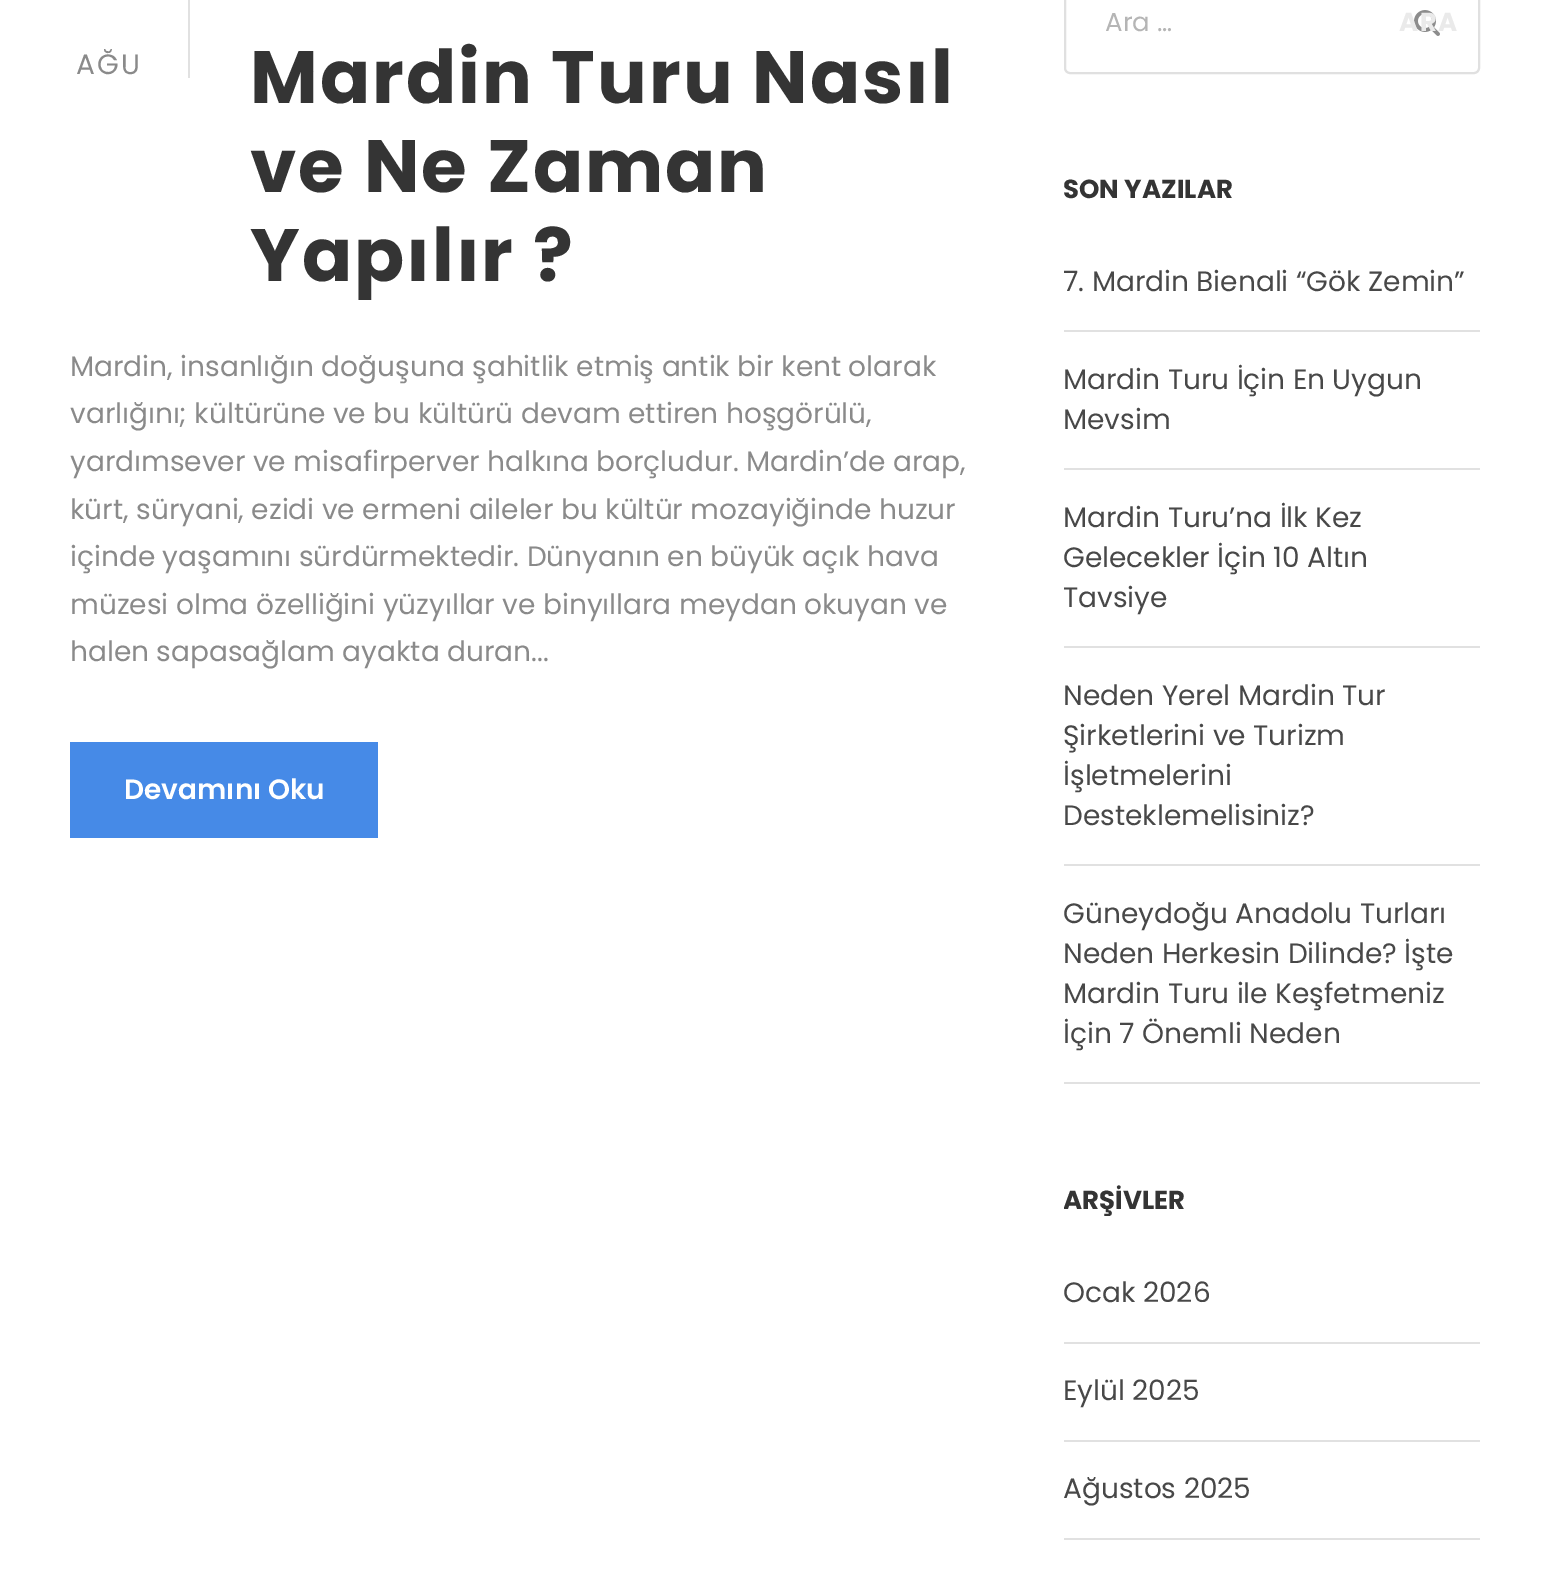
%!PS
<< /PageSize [1549 1573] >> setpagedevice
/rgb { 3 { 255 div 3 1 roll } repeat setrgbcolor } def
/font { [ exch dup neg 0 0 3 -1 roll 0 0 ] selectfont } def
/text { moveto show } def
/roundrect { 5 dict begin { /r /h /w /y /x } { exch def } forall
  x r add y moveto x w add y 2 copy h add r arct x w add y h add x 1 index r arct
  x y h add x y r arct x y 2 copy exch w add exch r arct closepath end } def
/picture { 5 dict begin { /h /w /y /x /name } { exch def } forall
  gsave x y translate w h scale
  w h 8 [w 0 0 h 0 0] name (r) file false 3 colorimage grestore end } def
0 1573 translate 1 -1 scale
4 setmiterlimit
255 255 255 rgb
0 0 1549 1573 rectfill
225 225 225 rgb
188 0 2 78 rectfill
70 138 231 rgb
70 742 308 96 rectfill
224 224 224 rgb
2 setlinewidth
1065 -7 414 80 5 roundrect stroke
(img_01.rgb) 1414 10 26 26 picture
225 225 225 rgb
1064 330 416 2 rectfill
1064 468 416 2 rectfill
1064 646 416 2 rectfill
1064 864 416 2 rectfill
1064 1082 416 2 rectfill
1064 1342 416 2 rectfill
1064 1440 416 2 rectfill
1064 1538 416 2 rectfill
/Poppins-Regular 28 font
138 138 138 rgb
76 74 moveto 2 0 (AĞU) ashow
/Poppins-Bold 74 font
52 52 52 rgb
250 103 moveto 2 0 (Mardin Turu Nasıl) ashow
250 192 moveto 2 0 (ve Ne Zaman) ashow
gsave
250 0 734 300 rectclip
250 281 moveto 2 0 (Yapılır ?) ashow
grestore
/Poppins-Regular 28 font
138 138 138 rgb
(Mardin, insanlığın doğuşuna şahitlik etmiş antik bir kent olarak) 70 376 text
(varlığını; kültürüne ve bu kültürü devam ettiren hoşgörülü,) 70 423 text
(yardımsever ve misafirperver halkına borçludur. Mardin’de arap,) 70 471 text
(kürt, süryani, ezidi ve ermeni aileler bu kültür mozayiğinde huzur) 70 519 text
(içinde yaşamını sürdürmektedir. Dünyanın en büyük açık hava) 70 566 text
(müzesi olma özelliğini yüzyıllar ve binyıllara meydan okuyan ve) 70 614 text
(halen sapasağlam ayakta duran...) 70 661 text
/Poppins-SemiBold 28 font
255 255 255 rgb
(Devamını Oku) 124 799 text
/Poppins-Regular 26 font
181 181 181 rgb
(Ara …) 1105 31 text
/Poppins-Bold 26 font
234 234 234 rgb
1399 31 moveto 1.5 0 (ARA) ashow
52 52 52 rgb
(SON YAZILAR) 1063 198 text
/Poppins-Regular 28 font
72 72 72 rgb
(7. Mardin Bienali “Gök Zemin”) 1063 291 text
(Mardin Turu İçin En Uygun) 1063 389 text
(Mevsim) 1063 429 text
(Mardin Turu’na İlk Kez) 1063 527 text
(Gelecekler İçin 10 Altın) 1063 567 text
(Tavsiye) 1063 607 text
(Neden Yerel Mardin Tur) 1063 705 text
(Şirketlerini ve Turizm) 1063 745 text
(İşletmelerini) 1063 785 text
(Desteklemelisiniz?) 1063 825 text
(Güneydoğu Anadolu Turları) 1063 923 text
(Neden Herkesin Dilinde? İşte) 1063 963 text
(Mardin Turu ile Keşfetmeniz) 1063 1003 text
(İçin 7 Önemli Neden) 1063 1043 text
gsave
1064 1184 416 32 rectclip
/Poppins-Bold 26 font
52 52 52 rgb
(ARŞİVLER) 1063 1209 text
grestore
(Ocak 2026) 1063 1302 text
(Eylül 2025) 1063 1400 text
(Ağustos 2025) 1063 1498 text
showpage
